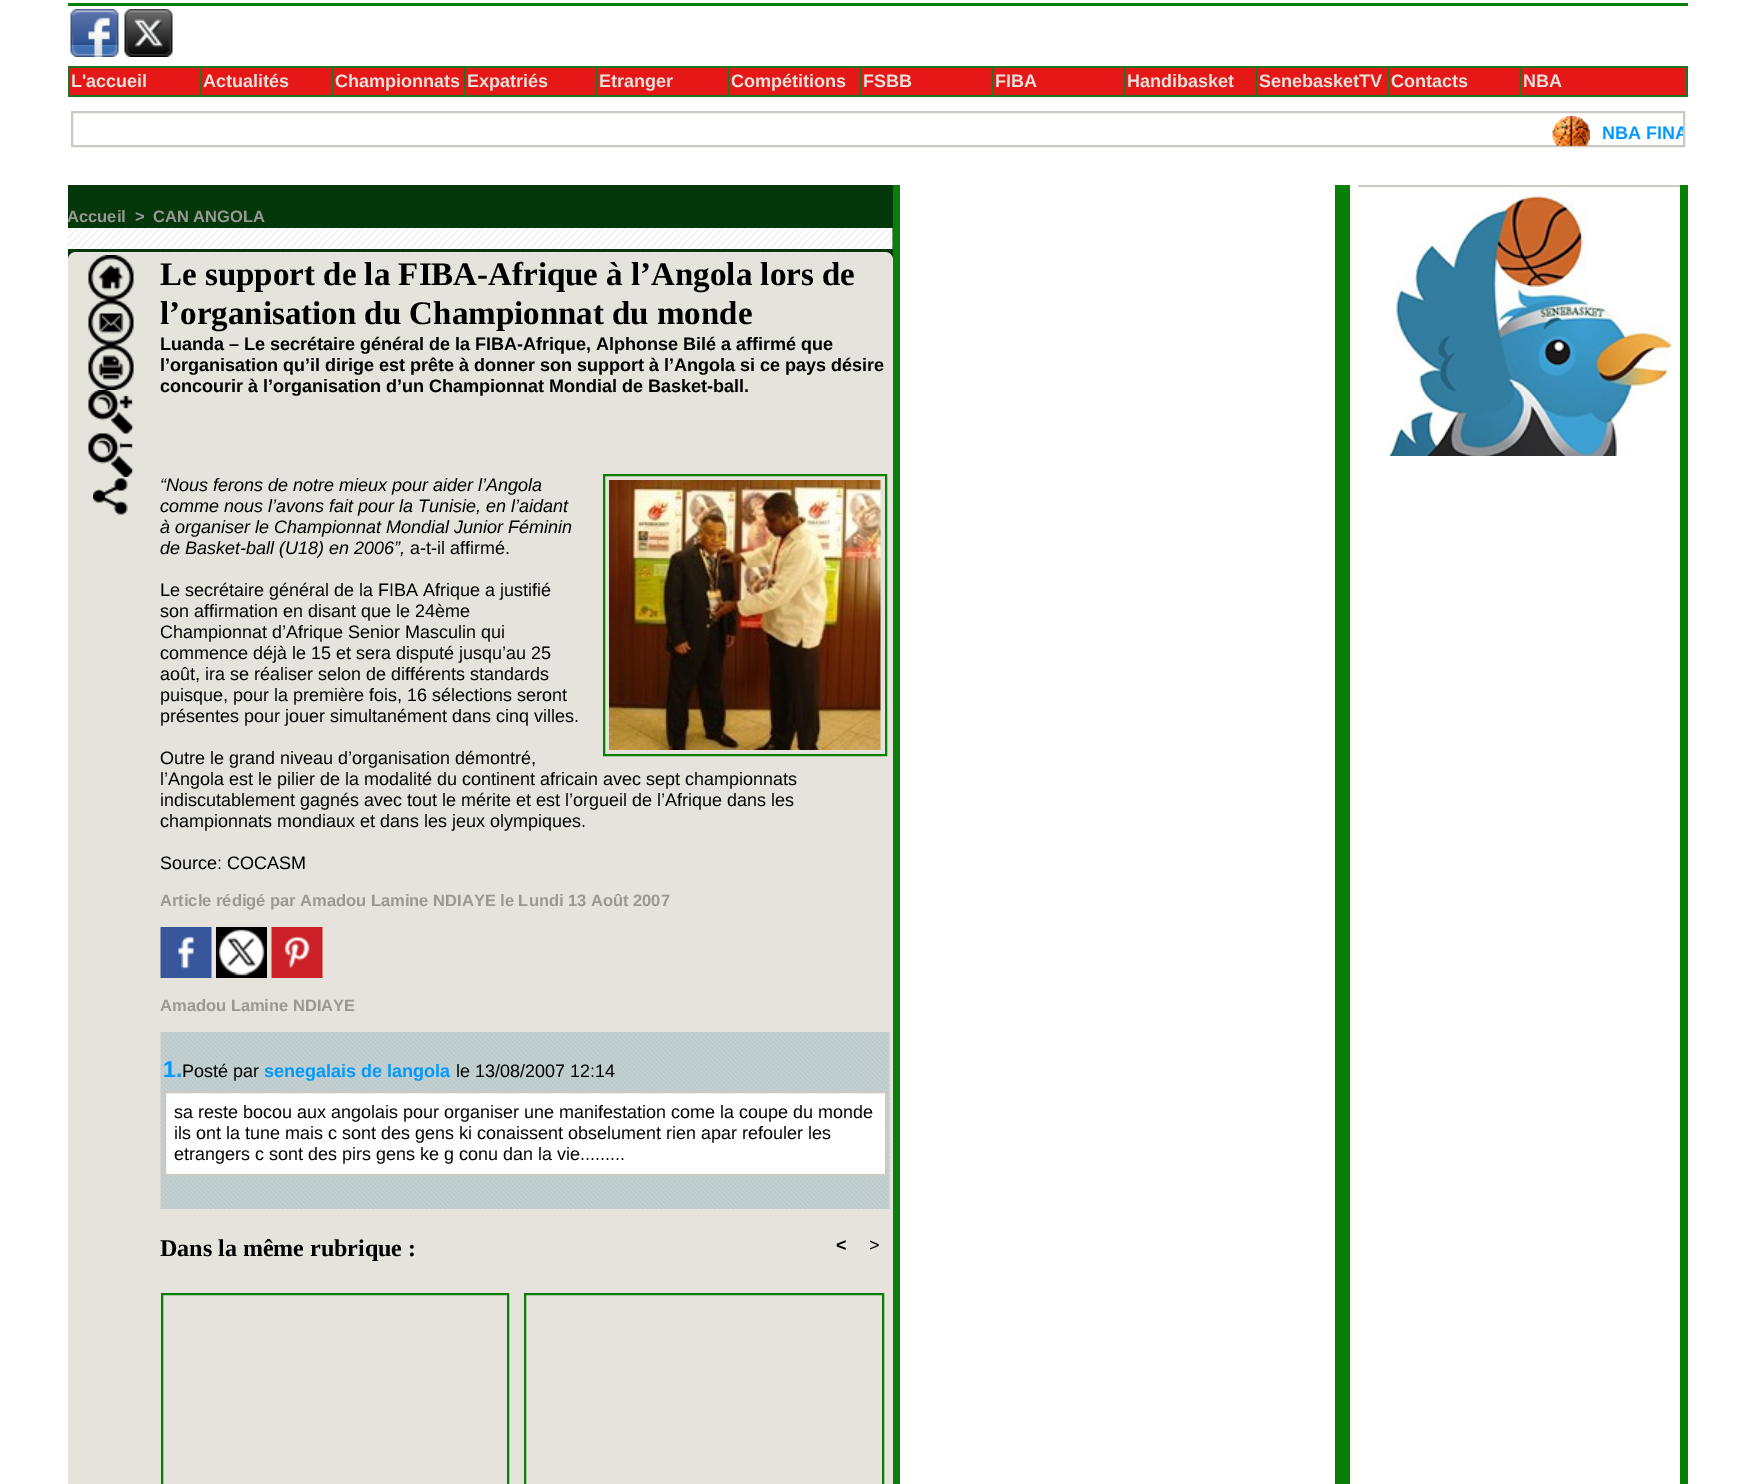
%!PS
<< /PageSize [1753 1484] >> setpagedevice
/rgb { 3 { 255 div 3 1 roll } repeat setrgbcolor } def
/font { [ exch dup neg 0 0 3 -1 roll 0 0 ] selectfont } def
/text { moveto show } def
/roundrect { 5 dict begin { /r /h /w /y /x } { exch def } forall
  x r add y moveto x w add y 2 copy h add r arct x w add y h add x 1 index r arct
  x y h add x y r arct x y 2 copy exch w add exch r arct closepath end } def
/picture { 5 dict begin { /h /w /y /x /name } { exch def } forall
  gsave x y translate w h scale
  w h 8 [w 0 0 h 0 0] name (r) file false 3 colorimage grestore end } def
0 1484 translate 1 -1 scale
4 setmiterlimit
255 255 255 rgb
0 0 1753 1484 rectfill
8 128 8 rgb
68 3 1620 3 rectfill
(img_01.rgb) 70 9 49 48 picture
(img_02.rgb) 124 9 49 48 picture
30 115 30 rgb
68 66 1620 2 rectfill
230 23 23 rgb
1521 68 165 27 rectfill
30 115 30 rgb
1686 68 2 28 rectfill
68 95 1620 2 rectfill
68 68 2 28 rectfill
200 68 1 27 rectfill
230 23 23 rgb
69 68 131 27 rectfill
30 115 30 rgb
332 68 1 27 rectfill
230 23 23 rgb
201 68 131 27 rectfill
30 115 30 rgb
464 68 1 27 rectfill
230 23 23 rgb
333 68 131 27 rectfill
30 115 30 rgb
596 68 1 27 rectfill
230 23 23 rgb
465 68 131 27 rectfill
30 115 30 rgb
728 68 1 27 rectfill
230 23 23 rgb
597 68 131 27 rectfill
30 115 30 rgb
860 68 1 27 rectfill
230 23 23 rgb
729 68 131 27 rectfill
30 115 30 rgb
992 68 1 27 rectfill
230 23 23 rgb
861 68 131 27 rectfill
30 115 30 rgb
1124 68 1 27 rectfill
230 23 23 rgb
993 68 131 27 rectfill
30 115 30 rgb
1256 68 1 27 rectfill
230 23 23 rgb
1125 68 131 27 rectfill
30 115 30 rgb
1388 68 1 27 rectfill
230 23 23 rgb
1257 68 131 27 rectfill
30 115 30 rgb
1520 68 1 27 rectfill
230 23 23 rgb
1389 68 131 27 rectfill
204 201 195 rgb
2 setlinewidth
72 112 1612 34 rectstroke
(img_03.rgb) 1552 116 38 30 picture
4 56 10 rgb
68 185 825 75 rectfill
(img_04.rgb) 67 228 826 21 picture
230 227 220 rgb
68 252 825 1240 8 roundrect fill
(img_05.rgb) 88 255 46 45 picture
(img_06.rgb) 88 300 46 45 picture
(img_07.rgb) 88 345 46 45 picture
(img_08.rgb) 88 390 46 44 picture
(img_09.rgb) 88 433 46 44 picture
(img_10.rgb) 93 478 35 37 picture
8 128 8 rgb
604 475 282 280 rectstroke
(img_11.rgb) 609 480 272 270 picture
(img_12.rgb) 160 927 52 51 picture
(img_13.rgb) 216 927 51 51 picture
(img_14.rgb) 271 927 52 51 picture
(img_15.rgb) 160 1032 730 177 picture
255 255 255 rgb
165 1092 moveto 721 0 rlineto 0 83 rlineto -721 0 rlineto closepath gsave fill grestore
204 201 195 rgb
stroke
8 128 8 rgb
162 1294 346 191 rectstroke
525 1294 358 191 rectstroke
1335 185 15 1299 rectfill
893 185 7 1299 rectfill
1680 185 8 1299 rectfill
204 201 195 rgb
1358 185 322 2 rectfill
(img_16.rgb) 1385 190 289 266 picture
/LiberationSans-Bold 18 font
230 227 220 rgb
(L'accueil) 71 87 text
(Actualités) 203 87 text
(Championnats) 335 87 text
(Expatriés) 467 87 text
(Etranger) 599 87 text
(Compétitions) 731 87 text
(FSBB) 863 87 text
(FIBA) 995 87 text
(Handibasket) 1127 87 text
(SenebasketTV) 1259 87 text
(Contacts) 1391 87 text
(NBA) 1523 87 text
gsave
72 116 1611 30 rectclip
0 153 255 rgb
(NBA FINA) 1602 139 text
grestore
/LiberationSans-Bold 16.5 font
154 152 148 rgb
(Accueil) 67 222 text
(>) 135 222 text
(CAN ANGOLA) 153 222 text
/LiberationSerif-Bold 33 font
0 0 0 rgb
(Le support de la FIBA-Afrique à l’Angola lors de) 160 285 text
(l’organisation du Championnat du monde) 160 324 text
/LiberationSans-Bold 18 font
(Luanda – Le secrétaire général de la FIBA-Afrique, Alphonse Bilé a affirmé que) 160 350 text
(l’organisation qu’il dirige est prête à donner son support à l’Angola si ce pays désire) 160 371 text
(concourir à l’organisation d’un Championnat Mondial de Basket-ball.) 160 392 text
/LiberationSans-Italic 18 font
(“Nous ferons de notre mieux pour aider l’Angola) 160 491 text
(comme nous l’avons fait pour la Tunisie, en l’aidant) 160 512 text
(à organiser le Championnat Mondial Junior Féminin) 160 533 text
(de Basket-ball \(U18\) en 2006”,) 160 554 text
/LiberationSans-Regular 18 font
(a-t-il affirmé.) 410 554 text
(Le secrétaire général de la FIBA Afrique a justifié) 160 596 text
(son affirmation en disant que le 24ème) 160 617 text
(Championnat d’Afrique Senior Masculin qui) 160 638 text
(commence déjà le 15 et sera disputé jusqu’au 25) 160 659 text
(août, ira se réaliser selon de différents standards) 160 680 text
(puisque, pour la première fois, 16 sélections seront) 160 701 text
(présentes pour jouer simultanément dans cinq villes.) 160 722 text
(Outre le grand niveau d’organisation démontré,) 160 764 text
(l’Angola est le pilier de la modalité du continent africain avec sept championnats) 160 785 text
(indiscutablement gagnés avec tout le mérite et est l’orgueil de l’Afrique dans les) 160 806 text
(championnats mondiaux et dans les jeux olympiques.) 160 827 text
(Source: COCASM) 160 869 text
/LiberationSans-Bold 16.5 font
154 152 148 rgb
(Article rédigé par Amadou Lamine NDIAYE le Lundi 13 Août 2007) 160 906 text
(Amadou Lamine NDIAYE) 160 1011 text
/LiberationSans-Bold 23 font
0 153 255 rgb
(1.) 163 1077 text
/LiberationSans-Regular 18 font
0 0 0 rgb
(Posté par) 182 1077 text
/LiberationSans-Bold 18 font
0 153 255 rgb
(senegalais de langola) 264 1077 text
/LiberationSans-Regular 18 font
0 0 0 rgb
(le 13/08/2007 12:14) 456 1077 text
(sa reste bocou aux angolais pour organiser une manifestation come la coupe du monde) 174 1118 text
(ils ont la tune mais c sont des gens ki conaissent obselument rien apar refouler les) 174 1139 text
(etrangers c sont des pirs gens ke g conu dan la vie.........) 174 1160 text
/LiberationSerif-Bold 24 font
(Dans la même rubrique :) 160 1256 text
/LiberationSans-Bold 18 font
(<) 836 1251 text
/LiberationSans-Regular 18 font
(>) 869 1251 text
showpage
